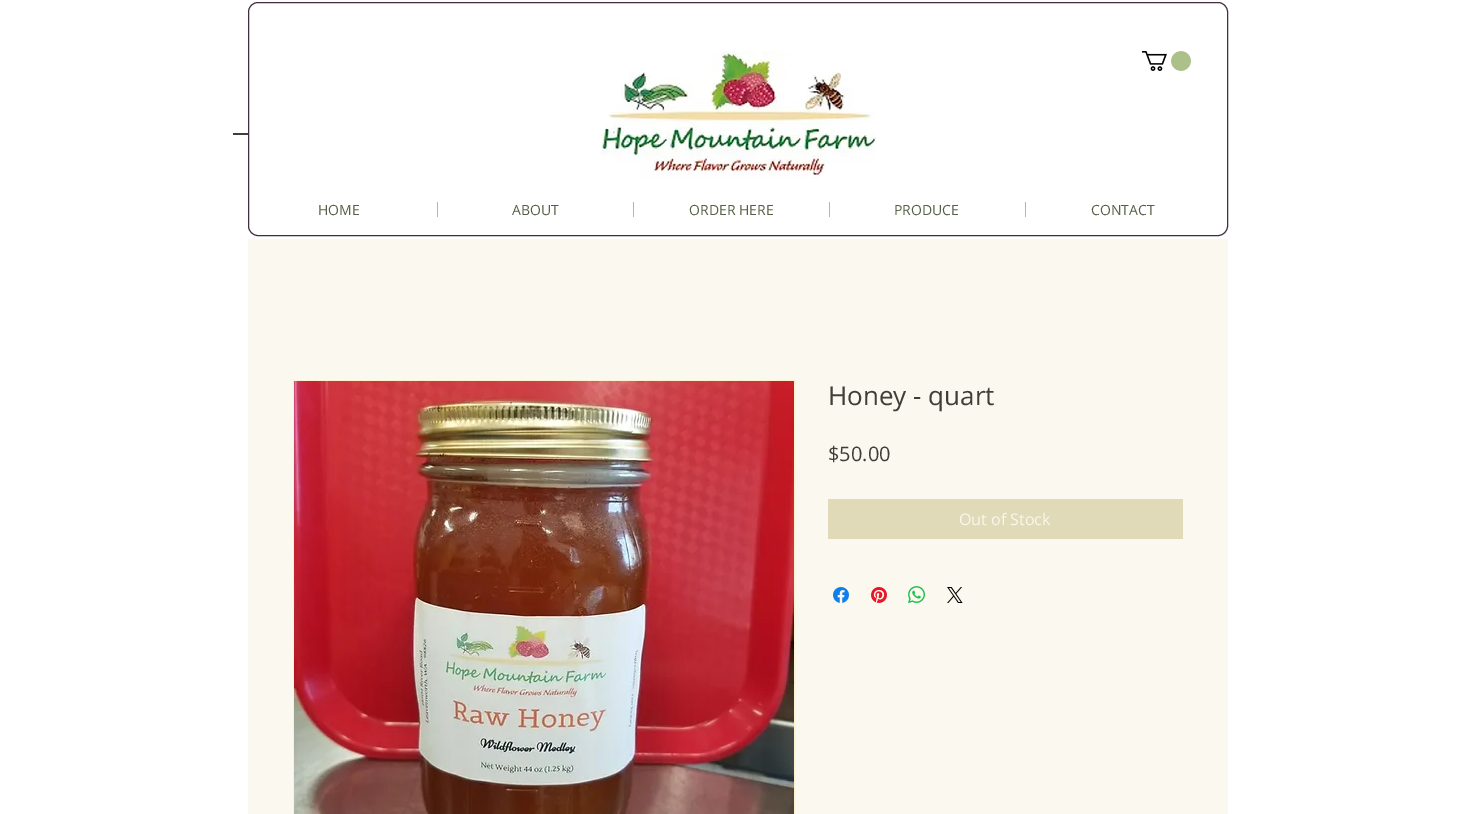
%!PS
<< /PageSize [1475 814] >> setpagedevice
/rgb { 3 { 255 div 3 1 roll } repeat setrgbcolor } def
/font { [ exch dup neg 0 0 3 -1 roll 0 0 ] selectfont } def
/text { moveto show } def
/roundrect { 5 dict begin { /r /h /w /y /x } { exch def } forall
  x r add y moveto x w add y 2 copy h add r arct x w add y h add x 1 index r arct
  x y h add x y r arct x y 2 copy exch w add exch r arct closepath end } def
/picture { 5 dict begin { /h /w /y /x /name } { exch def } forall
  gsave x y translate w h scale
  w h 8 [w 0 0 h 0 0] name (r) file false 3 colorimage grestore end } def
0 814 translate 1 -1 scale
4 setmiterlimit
255 255 255 rgb
0 0 1475 814 rectfill
64 62 55 rgb
233 133 15 2 rectfill
66 46 64 rgb
248.5 2.5 979 233 9.5 roundrect stroke
(img_01.rgb) 601 51 275 128 picture
(img_02.rgb) 1142 51 49 20 picture
171 193 137 rgb
437 202 1 15 rectfill
633 202 1 15 rectfill
829 202 1 15 rectfill
1025 202 1 15 rectfill
250 248 239 rgb
248 239 980 575 rectfill
251 243 206 rgb
293.5 380.5 501 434 rectstroke
(img_03.rgb) 294 381 500 433 picture
225 218 184 rgb
828 499 355 40 rectfill
(img_04.rgb) 833 587 16 16 picture
(img_05.rgb) 871 587 16 16 picture
(img_06.rgb) 908 586 17 17 picture
(img_07.rgb) 947 587 16 16 picture
/OpenSans-Regular 14 font
85 96 68 rgb
(HOME) 318 215 text
(ABOUT) 512 215 text
(ORDER HERE) 689 215 text
(PRODUCE) 894 215 text
(CONTACT) 1091 215 text
/OpenSans-Regular 26 font
64 62 55 rgb
(Honey - quart) 828 405 text
/OpenSans-Regular 20 font
($50.00) 828 461 text
/OpenSans-Regular 16 font
249 247 236 rgb
(Out of Stock) 959 525 text
showpage
